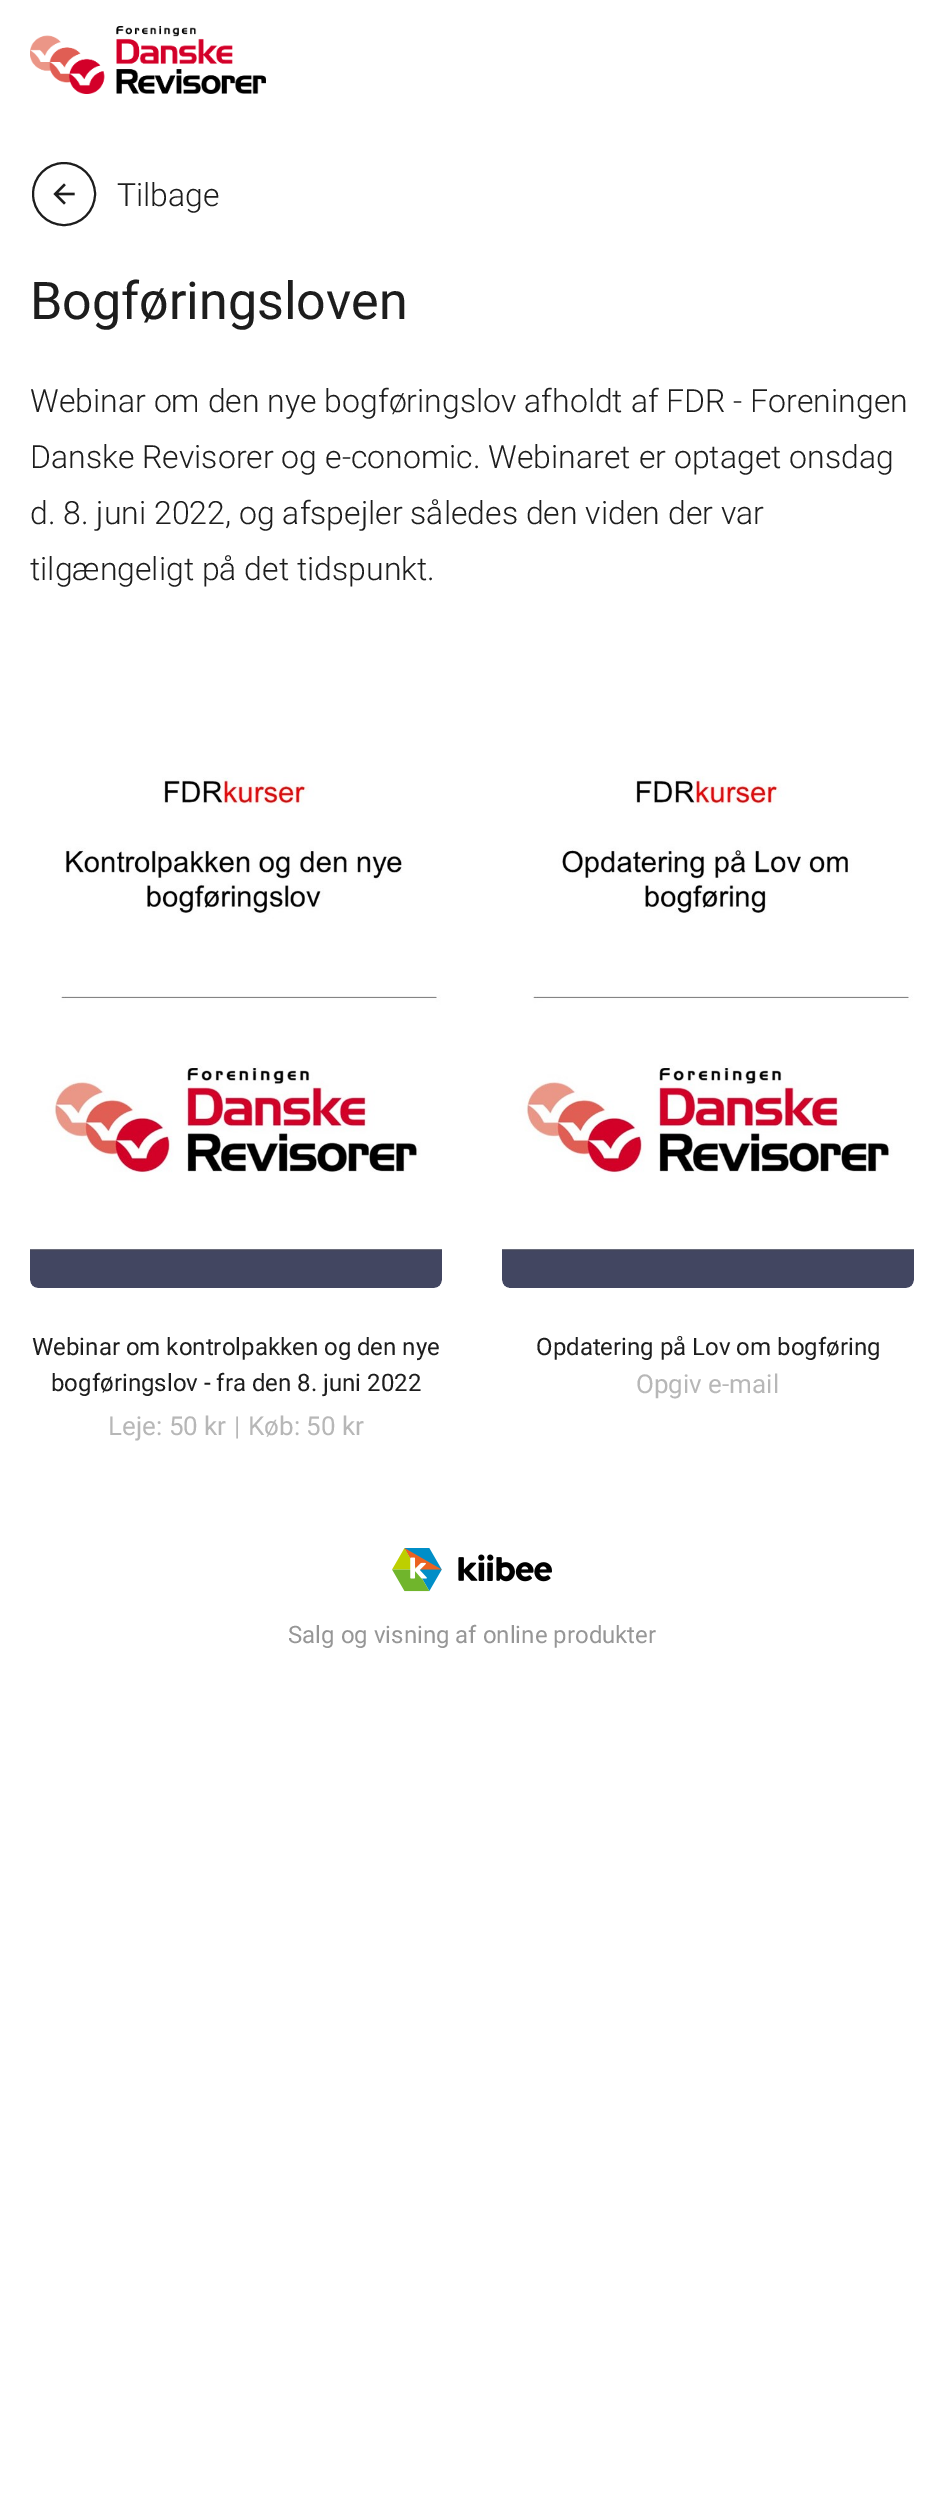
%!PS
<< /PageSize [943 2503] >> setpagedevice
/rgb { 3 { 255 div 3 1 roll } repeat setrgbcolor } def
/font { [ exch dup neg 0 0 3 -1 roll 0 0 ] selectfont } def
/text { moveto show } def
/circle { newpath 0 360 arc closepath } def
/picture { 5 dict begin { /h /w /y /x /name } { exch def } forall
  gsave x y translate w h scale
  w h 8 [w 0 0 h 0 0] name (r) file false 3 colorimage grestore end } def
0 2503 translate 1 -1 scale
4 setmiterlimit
255 255 255 rgb
0 0 943 2503 rectfill
(img_01.rgb) 30 26 236 68 picture
29 29 29 rgb
2 setlinewidth
64 194 31 circle stroke
(img_02.rgb) 53 183 22 22 picture
(img_03.rgb) 30 777 412 511 picture
(img_04.rgb) 502 776 412 512 picture
(img_05.rgb) 392 1548 160 44 picture
/Roboto-Light 32 font
(Tilbage) 117 206 text
/Roboto-Regular 52 font
(Bogføringsloven) 30 319 text
/Roboto-Light 32 font
(Webinar om den nye bogføringslov afholdt af FDR - Foreningen) 30 412 text
(Danske Revisorer og e-conomic. Webinaret er optaget onsdag) 30 468 text
(d. 8. juni 2022, og afspejler således den viden der var) 30 524 text
(tilgængeligt på det tidspunkt.) 30 580 text
/Roboto-Regular 24 font
(Webinar om kontrolpakken og den nye) 32 1355 text
(bogføringslov - fra den 8. juni 2022) 51 1391 text
/Roboto-Regular 26 font
183 183 183 rgb
(Leje: 50 kr) 108 1435 text
(|) 234 1435 text
(Køb: 50 kr) 248 1435 text
/Roboto-Regular 24 font
29 29 29 rgb
(Opdatering på Lov om bogføring) 536 1355 text
/Roboto-Regular 26 font
183 183 183 rgb
(Opgiv e-mail) 636 1393 text
/Roboto-Regular 24 font
150 150 150 rgb
(Salg og visning af online produkter) 288 1643 text
showpage
